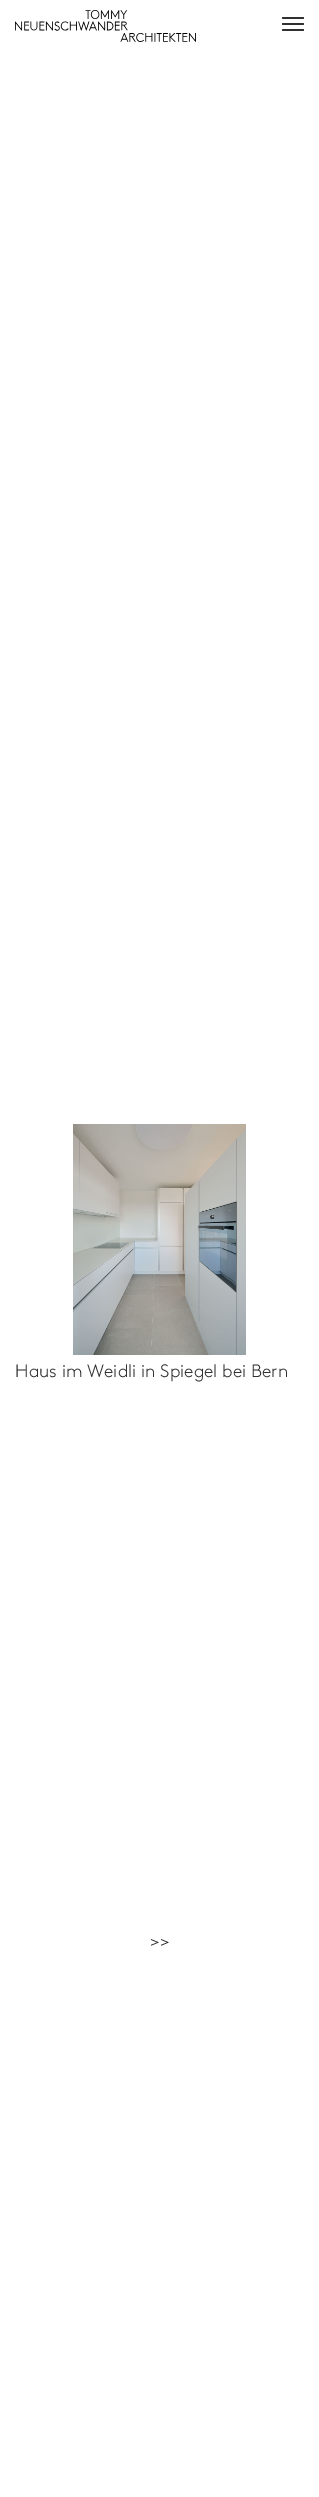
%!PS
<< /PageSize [319 2497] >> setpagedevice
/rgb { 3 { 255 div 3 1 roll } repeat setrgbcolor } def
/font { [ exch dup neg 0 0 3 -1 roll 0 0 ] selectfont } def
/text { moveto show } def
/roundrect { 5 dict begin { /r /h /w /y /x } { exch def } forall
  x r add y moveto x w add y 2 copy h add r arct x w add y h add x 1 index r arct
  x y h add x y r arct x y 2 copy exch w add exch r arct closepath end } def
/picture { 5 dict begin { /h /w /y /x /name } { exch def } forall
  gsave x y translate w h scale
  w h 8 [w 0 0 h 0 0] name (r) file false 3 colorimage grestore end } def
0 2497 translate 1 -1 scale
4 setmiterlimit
255 255 255 rgb
0 0 319 2497 rectfill
(img_01.rgb) 15 10 181 32 picture
49 48 48 rgb
282 17 22 2 1 roundrect fill
282 23 22 2 1 roundrect fill
282 29 22 2 1 roundrect fill
(img_02.rgb) 73 1124 173 231 picture
/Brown-Light 18 font
(Haus im Weidli in Spiegel bei Bern) 15 1377 text
(>>) 150 1947 text
showpage
